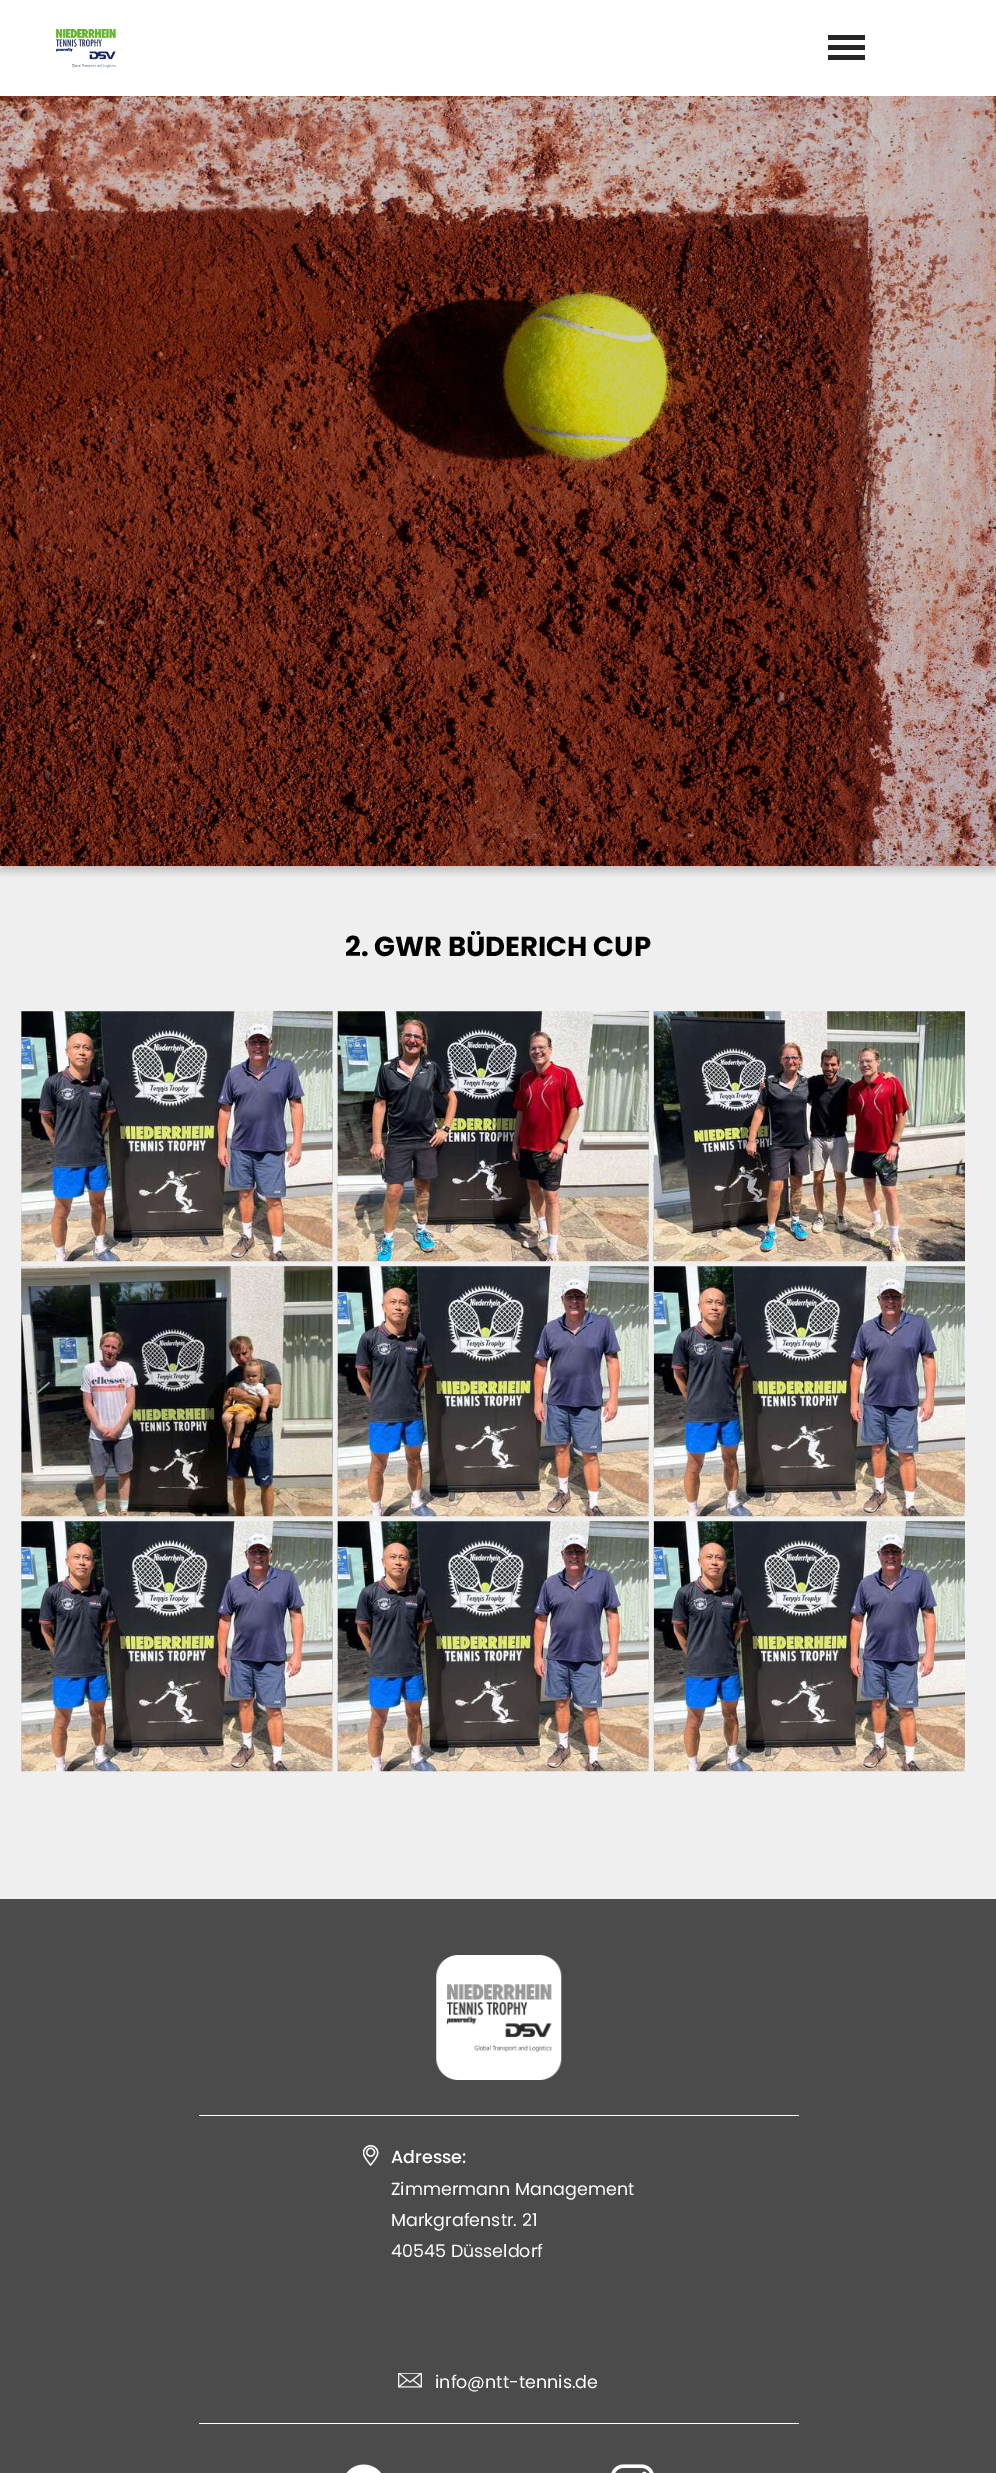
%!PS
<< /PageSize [996 2473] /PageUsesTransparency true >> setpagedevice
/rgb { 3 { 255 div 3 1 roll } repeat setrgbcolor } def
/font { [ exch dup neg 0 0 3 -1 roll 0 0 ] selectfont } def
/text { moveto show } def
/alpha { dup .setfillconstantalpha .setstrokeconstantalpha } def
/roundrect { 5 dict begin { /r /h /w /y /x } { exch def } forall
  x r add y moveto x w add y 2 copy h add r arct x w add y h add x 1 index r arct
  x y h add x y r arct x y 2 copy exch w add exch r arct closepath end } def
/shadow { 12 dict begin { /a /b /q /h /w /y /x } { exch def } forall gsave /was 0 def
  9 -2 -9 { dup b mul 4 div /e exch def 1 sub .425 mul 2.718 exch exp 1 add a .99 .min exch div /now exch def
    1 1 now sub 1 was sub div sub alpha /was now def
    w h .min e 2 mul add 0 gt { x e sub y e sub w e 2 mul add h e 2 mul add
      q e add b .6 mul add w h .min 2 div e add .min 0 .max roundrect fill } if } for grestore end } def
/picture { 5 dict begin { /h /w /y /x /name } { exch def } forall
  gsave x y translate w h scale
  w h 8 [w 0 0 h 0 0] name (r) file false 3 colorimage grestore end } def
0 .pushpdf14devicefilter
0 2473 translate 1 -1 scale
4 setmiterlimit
255 255 255 rgb
0 0 996 2473 rectfill
(img_01.rgb) 55 29 61 39 picture
38 38 41 rgb
828 35 37 5 rectfill
828 45 37 5 rectfill
828 55 37 5 rectfill
(img_02.rgb) 0 96 996 770 picture
0.2 alpha
0 0 0 rgb
0 96 996 770 rectfill
1 alpha
239 239 239 rgb
0 866 996 1033 rectfill
gsave
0 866 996 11 rectclip
0 0 0 rgb
0 859 996 12 0 4.5 0.2 shadow
grestore
(img_03.rgb) 21 1011 312 251 picture
(img_04.rgb) 337 1011 312 251 picture
(img_05.rgb) 653 1011 312 251 picture
(img_06.rgb) 21 1266 312 251 picture
(img_07.rgb) 337 1266 312 251 picture
(img_08.rgb) 653 1266 312 251 picture
(img_09.rgb) 21 1521 312 251 picture
(img_10.rgb) 337 1521 312 251 picture
(img_11.rgb) 653 1521 312 251 picture
75 75 75 rgb
0 1899 996 574 rectfill
(img_12.rgb) 436 1955 126 125 picture
255 255 255 rgb
199 2115 600 1 rectfill
199 2423 600 1 rectfill
(img_13.rgb) 363 2145 16 21 picture
(img_14.rgb) 398 2373 24 15 picture
(img_15.rgb) 346 2464 35 9 picture
(img_16.rgb) 611 2464 43 9 picture
/Poppins-Bold 27.5 font
0 0 0 rgb
(2. GWR BÜDERICH CUP) 345 956 text
/Poppins-Medium 17.5 font
255 255 255 rgb
(Adresse:) 391 2163 text
/Poppins-Regular 17.5 font
(Zimmermann Management) 391 2195 text
(Markgrafenstr. 21) 391 2226 text
(40545 Düsseldorf) 391 2257 text
(info@ntt-tennis.de) 435 2388 text
.poppdf14devicefilter showpage
